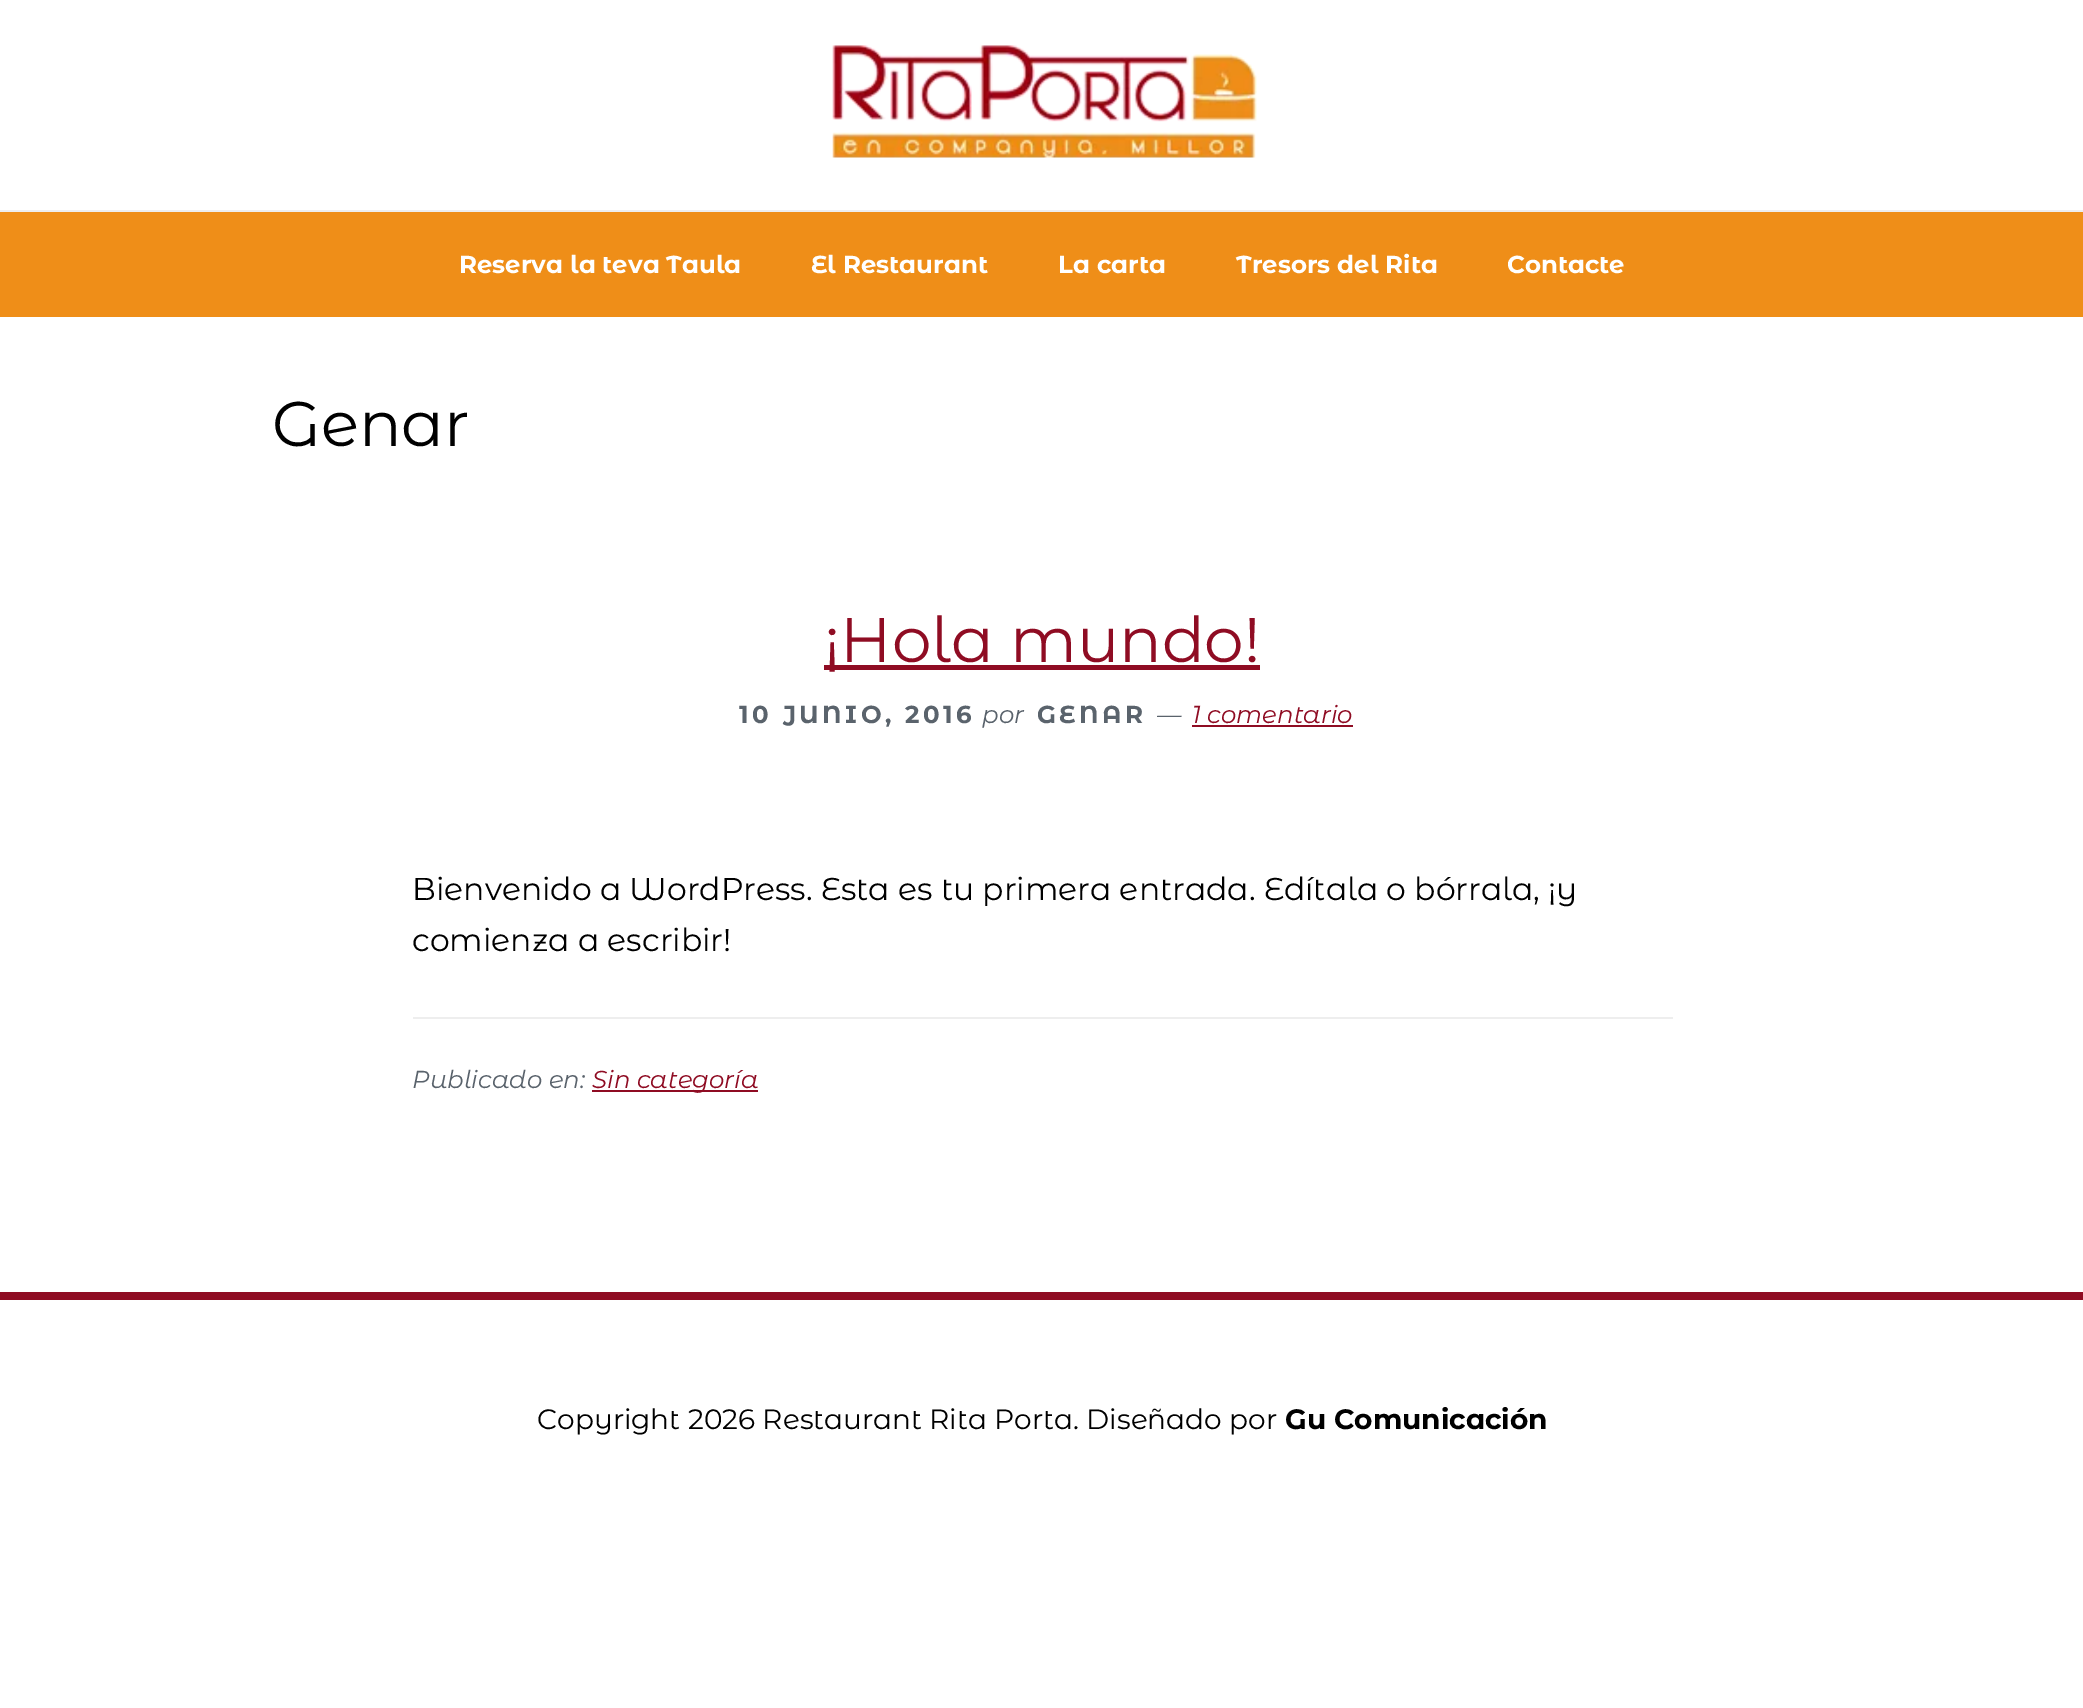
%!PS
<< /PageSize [2083 1708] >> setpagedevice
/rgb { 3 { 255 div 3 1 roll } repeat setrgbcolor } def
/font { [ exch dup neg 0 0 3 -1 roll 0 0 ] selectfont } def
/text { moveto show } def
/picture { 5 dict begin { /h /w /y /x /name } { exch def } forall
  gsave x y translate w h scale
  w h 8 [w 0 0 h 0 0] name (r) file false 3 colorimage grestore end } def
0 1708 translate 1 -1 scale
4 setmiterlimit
255 255 255 rgb
0 0 2083 1708 rectfill
(img_01.rgb) 832 45 425 113 picture
239 142 24 rgb
0 212 2083 105 rectfill
238 238 238 rgb
0 210 2083 2 rectfill
143 12 35 rgb
824 665 436 5 rectfill
1192 725 161 2 rectfill
238 238 238 rgb
413 1017 1260 2 rectfill
143 12 35 rgb
592 1090 166 2 rectfill
0 1292 2083 8 rectfill
/MontserratAlternates-Bold 24.5 font
255 255 255 rgb
(Reserva la teva Taula) 459 273 text
(El Restaurant) 811 273 text
(La carta) 1058 273 text
(Tresors del Rita) 1236 273 text
(Contacte) 1507 273 text
/MontserratAlternates-Regular 63 font
0 0 0 rgb
(Genar) 272 446 text
143 12 35 rgb
(¡Hola mundo!) 824 662 text
/MontserratAlternates-Bold 24.5 font
90 99 108 rgb
739 723 moveto 3.5 0 (10 JUNIO, 2016) ashow
/MontserratAlternates-Italic 24.5 font
(por) 982 723 text
/MontserratAlternates-Bold 24.5 font
1037 723 moveto 3.5 0 (GENAR) ashow
/MontserratAlternates-Italic 24.5 font
(—) 1157 723 text
143 12 35 rgb
(1 comentario) 1192 723 text
/MontserratAlternates-Regular 31.5 font
0 0 0 rgb
(Bienvenido a WordPress. Esta es tu primera entrada. Edítala o bórrala, ¡y) 412 900 text
(comienza a escribir!) 412 951 text
/MontserratAlternates-Italic 24.5 font
90 99 108 rgb
(Publicado en:) 412 1088 text
143 12 35 rgb
(Sin categoría) 592 1088 text
/MontserratAlternates-Regular 28 font
0 0 0 rgb
(Copyright 2026 Restaurant Rita Porta. Diseñado por) 537 1429 text
/MontserratAlternates-Bold 28 font
(Gu Comunicación) 1285 1429 text
showpage
